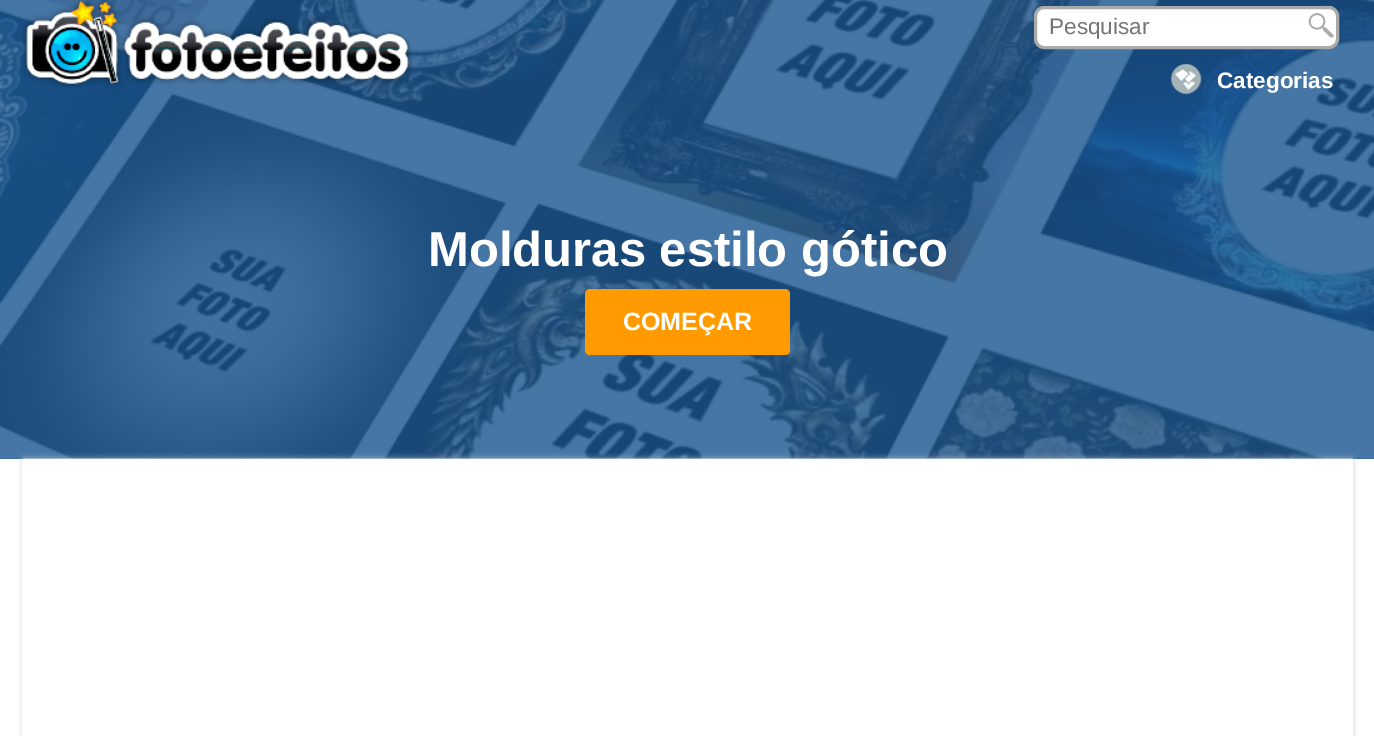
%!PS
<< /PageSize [1374 736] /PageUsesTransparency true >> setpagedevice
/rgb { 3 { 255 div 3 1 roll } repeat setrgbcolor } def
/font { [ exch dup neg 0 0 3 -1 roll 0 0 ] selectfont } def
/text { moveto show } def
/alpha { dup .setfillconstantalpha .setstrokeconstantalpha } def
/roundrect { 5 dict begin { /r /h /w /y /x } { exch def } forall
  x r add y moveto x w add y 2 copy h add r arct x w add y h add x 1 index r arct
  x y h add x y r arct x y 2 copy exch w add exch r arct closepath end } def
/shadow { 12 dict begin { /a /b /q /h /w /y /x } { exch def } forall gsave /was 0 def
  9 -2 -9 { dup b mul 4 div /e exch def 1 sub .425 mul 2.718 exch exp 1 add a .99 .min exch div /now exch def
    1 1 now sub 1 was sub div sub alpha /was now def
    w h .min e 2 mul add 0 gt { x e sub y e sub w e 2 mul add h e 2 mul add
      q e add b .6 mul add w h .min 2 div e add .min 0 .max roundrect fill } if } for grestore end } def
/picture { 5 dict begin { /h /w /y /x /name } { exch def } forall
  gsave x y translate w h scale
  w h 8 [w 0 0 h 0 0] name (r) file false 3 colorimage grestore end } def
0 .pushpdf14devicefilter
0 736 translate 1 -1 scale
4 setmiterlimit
255 255 255 rgb
0 0 1374 736 rectfill
(img_01.rgb) 0 0 1374 459 picture
(img_02.rgb) 22 0 391 88 picture
1035.5 7.5 302 40 8.5 roundrect gsave fill grestore
170 170 170 rgb
3 setlinewidth
stroke
(img_03.rgb) 1308 13 26 25 picture
(img_04.rgb) 1171 64 31 31 picture
255 155 0 rgb
585 289 205 66 5 roundrect fill
204 204 204 rgb
23 459 1330 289 2.5 3 1 shadow
255 255 255 rgb
23 459 1330 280 2.5 roundrect fill
6.2 setlinewidth
25.5 462 moveto 1324 0 rlineto 0 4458.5 rlineto -1324 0 rlineto closepath stroke
/LiberationSans-Regular 22.5 font
117 117 117 rgb
(Pesquisar) 1049 34 text
/LiberationSans-Bold 22.5 font
255 255 255 rgb
(Categorias) 1217 88 text
/LiberationSans-Bold 49 font
(Molduras estilo gótico) 428 266 text
/LiberationSans-Bold 25 font
(COMEÇAR) 623 330 text
.poppdf14devicefilter showpage
